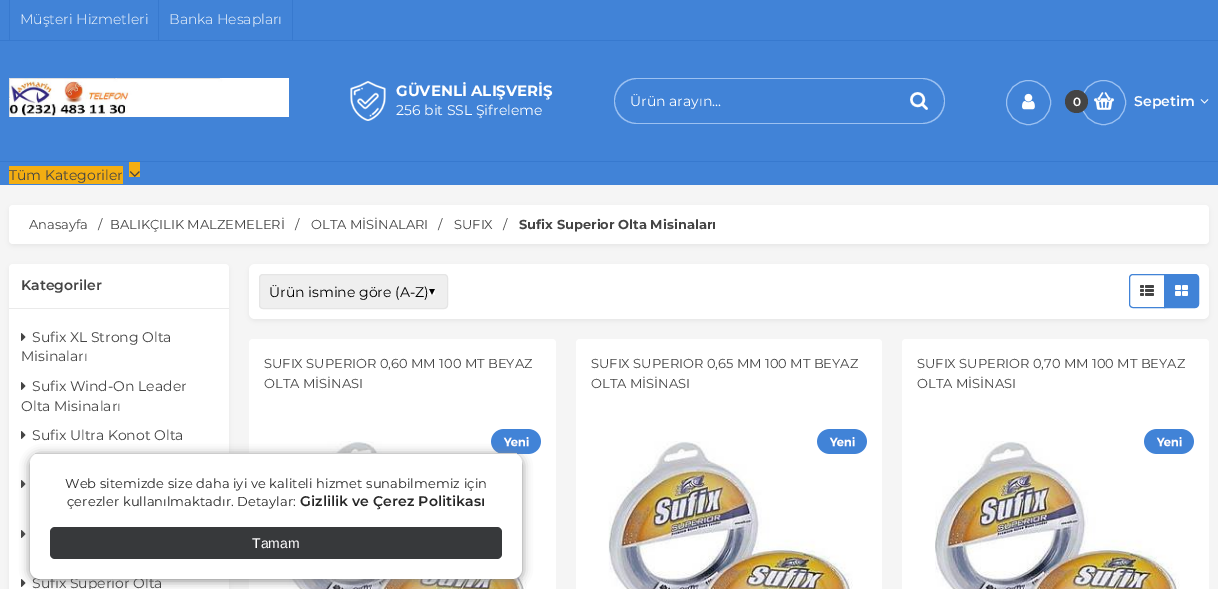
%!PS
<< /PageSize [1218 589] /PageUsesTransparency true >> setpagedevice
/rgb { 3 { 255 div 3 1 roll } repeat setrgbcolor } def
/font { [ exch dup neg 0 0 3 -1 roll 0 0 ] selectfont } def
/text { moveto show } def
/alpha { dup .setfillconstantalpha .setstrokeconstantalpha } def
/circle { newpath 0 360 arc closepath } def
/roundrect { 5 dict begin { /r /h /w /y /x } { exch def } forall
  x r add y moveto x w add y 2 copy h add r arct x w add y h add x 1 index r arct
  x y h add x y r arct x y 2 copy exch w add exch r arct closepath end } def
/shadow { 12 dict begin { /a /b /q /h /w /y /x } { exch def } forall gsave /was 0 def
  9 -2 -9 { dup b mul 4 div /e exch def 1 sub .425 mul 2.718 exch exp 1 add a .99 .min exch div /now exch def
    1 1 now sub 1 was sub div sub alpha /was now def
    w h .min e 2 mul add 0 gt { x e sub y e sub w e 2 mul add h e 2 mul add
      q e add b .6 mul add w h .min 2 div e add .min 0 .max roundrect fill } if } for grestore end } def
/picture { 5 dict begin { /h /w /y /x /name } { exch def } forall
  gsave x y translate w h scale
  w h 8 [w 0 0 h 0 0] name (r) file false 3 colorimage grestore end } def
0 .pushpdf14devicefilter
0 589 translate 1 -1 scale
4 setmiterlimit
245 245 245 rgb
0 0 1218 589 rectfill
65 131 215 rgb
0 0 1218 185 rectfill
55 121 206 rgb
0 40 1218 1 rectfill
9 0 1 40 rectfill
292 0 1 40 rectfill
158 0 1 40 rectfill
(img_01.rgb) 9 78 280 39 picture
(img_02.rgb) 350 81 36 40 picture
156 193 241 rgb
637 78 moveto 257 0 rlineto 0 46 rlineto -257 0 rlineto -13 0 -23 -10 -23 -23 rcurveto 0 -13 10 -23 23 -23 rcurveto closepath 637 79 moveto 257 0 rlineto 0 44 rlineto -257 0 rlineto -12 0 -22 -10 -22 -22 rcurveto 0 -12 10 -22 22 -22 rcurveto closepath eofill
(img_03.rgb) 910 92 18 18 picture
894 78 moveto 28 0 rlineto 13 0 23 10 23 23 rcurveto 0 13 -10 23 -23 23 rcurveto -28 0 rlineto closepath 894 79 moveto 28 0 rlineto 12 0 22 10 22 22 rcurveto 0 12 -10 22 -22 22 rcurveto -28 0 rlineto closepath eofill
1028.5 102.5 22 circle stroke
(img_04.rgb) 1022 93 13 17 picture
(img_05.rgb) 1094 92 20 18 picture
1103.5 102.5 22 circle stroke
68 68 68 rgb
1076.5 101.5 11.5 circle fill
(img_06.rgb) 1200 99 9 5 picture
55 121 206 rgb
0 161 1218 1 rectfill
243 174 18 rgb
9 166 114 18 rectfill
129 162 11 15 rectfill
(img_07.rgb) 129 171 11 6 picture
0 0 0 rgb
9 266 220 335 4 2.5 0.05 shadow
255 255 255 rgb
9 264 220 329 4 roundrect fill
(img_08.rgb) 21 480 5 8 picture
(img_08.rgb) 21 530 5 8 picture
(img_08.rgb) 21 579 5 8 picture
249 339 307 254 4 roundrect fill
(img_13.rgb) 282 441 245 148 picture
(img_12.rgb) 491 429 50 25 picture
136 136 136 rgb
30 455 492 126 10 5 1 shadow
0 0 0 rgb
9 207 1200 39 4 2.5 0.05 shadow
255 255 255 rgb
9 205 1200 39 4 roundrect fill
234 234 234 rgb
9 308 220 1 rectfill
(img_08.rgb) 21 333 5 8 picture
(img_08.rgb) 21 382 5 8 picture
(img_08.rgb) 21 431 5 8 picture
0 0 0 rgb
249 266 960 55 6 2.5 0.05 shadow
255 255 255 rgb
249 264 960 55 6 roundrect fill
239 239 239 rgb
259 274 189 35 4 roundrect fill
(img_09.rgb) 429 289 6 6 picture
229 229 229 rgb
259.5 274.5 188 34 3.5 roundrect stroke
65 131 215 rgb
1133 274.5 moveto 31.5 0 rlineto 0 33 rlineto -31.5 0 rlineto -2 0 -3.5 -1.5 -3.5 -3.5 rcurveto 0 -26 rlineto 0 -2 1.5 -3.5 3.5 -3.5 rcurveto closepath stroke
1164.5 274.5 moveto 30.5 0 rlineto 2 0 3.5 1.5 3.5 3.5 rcurveto 0 26 rlineto 0 2 -1.5 3.5 -3.5 3.5 rcurveto -30.5 0 rlineto closepath gsave fill grestore
stroke
(img_10.rgb) 1140 285 14 11 picture
(img_11.rgb) 1175 285 13 11 picture
255 255 255 rgb
576 339 306 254 4 roundrect fill
(img_14.rgb) 608 441 245 148 picture
(img_12.rgb) 817 429 50 25 picture
902 339 307 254 4 roundrect fill
(img_15.rgb) 935 441 245 148 picture
(img_12.rgb) 1144 429 50 25 picture
/Montserrat-Light 14 font
(Müşteri Hizmetleri) 20 24 text
(Banka Hesapları) 169 24 text
/Montserrat-Bold 15 font
(GÜVENLİ ALIŞVERİŞ) 396 96 text
/Montserrat-Regular 14 font
(256 bit SSL Şifreleme) 396 115 text
(Ürün arayın...) 630 106 text
/Montserrat-SemiBold 12 font
(0) 1073 106 text
/Montserrat-SemiBold 14 font
(Sepetim) 1134 106 text
/Montserrat-Regular 14 font
68 68 68 rgb
(Tüm Kategoriler) 9 180 text
/Montserrat-Regular 13 font
(Anasayfa) 29 229 text
(/) 98 229 text
(BALIKÇILIK MALZEMELERİ) 110 229 text
(/) 295 229 text
(OLTA MİSİNALARI) 311 229 text
(/) 438 229 text
(SUFIX) 454 229 text
(/) 503 229 text
/Montserrat-Bold 13 font
(Sufix Superior Olta Misinaları) 519 229 text
/Montserrat-SemiBold 14 font
(Kategoriler) 21 290 text
/Montserrat-Regular 14 font
(Sufix XL Strong Olta) 32 342 text
(Misinaları) 21 361 text
(Sufix Wind-On Leader) 32 391 text
(Olta Misinaları) 21 411 text
(Sufix Ultra Konot Olta) 32 440 text
(Sufix Superior Olta) 32 588 text
255 255 255 rgb
30 453 492 126 10 roundrect fill
55 57 59 rgb
50 527 452 32 5 roundrect fill
/LiberationSans-Regular 14 font
255 255 255 rgb
(Tamam) 252 548 text
/Montserrat-SemiBold 14 font
38 38 38 rgb
300 506 moveto 0.1 0 (Gizlilik ve Çerez Politikası) ashow
/Montserrat-Regular 13 font
67 506 moveto 0.1 0 (çerezler kullanılmaktadır. Detaylar:) ashow
65 488 moveto 0.1 0 (Web sitemizde size daha iyi ve kaliteli hizmet sunabilmemiz için) ashow
204 204 204 rgb
35 453 482 1 rectfill
/Montserrat-Regular 14 font
0 0 0 rgb
(Ürün ismine göre \(A-Z\)) 269 297 text
/Montserrat-Regular 13 font
68 68 68 rgb
(SUFIX SUPERIOR 0,60 MM 100 MT BEYAZ) 264 368 text
(OLTA MİSİNASI) 264 388 text
(SUFIX SUPERIOR 0,65 MM 100 MT BEYAZ) 591 368 text
(OLTA MİSİNASI) 591 388 text
(SUFIX SUPERIOR 0,70 MM 100 MT BEYAZ) 917 368 text
(OLTA MİSİNASI) 917 388 text
.poppdf14devicefilter showpage
